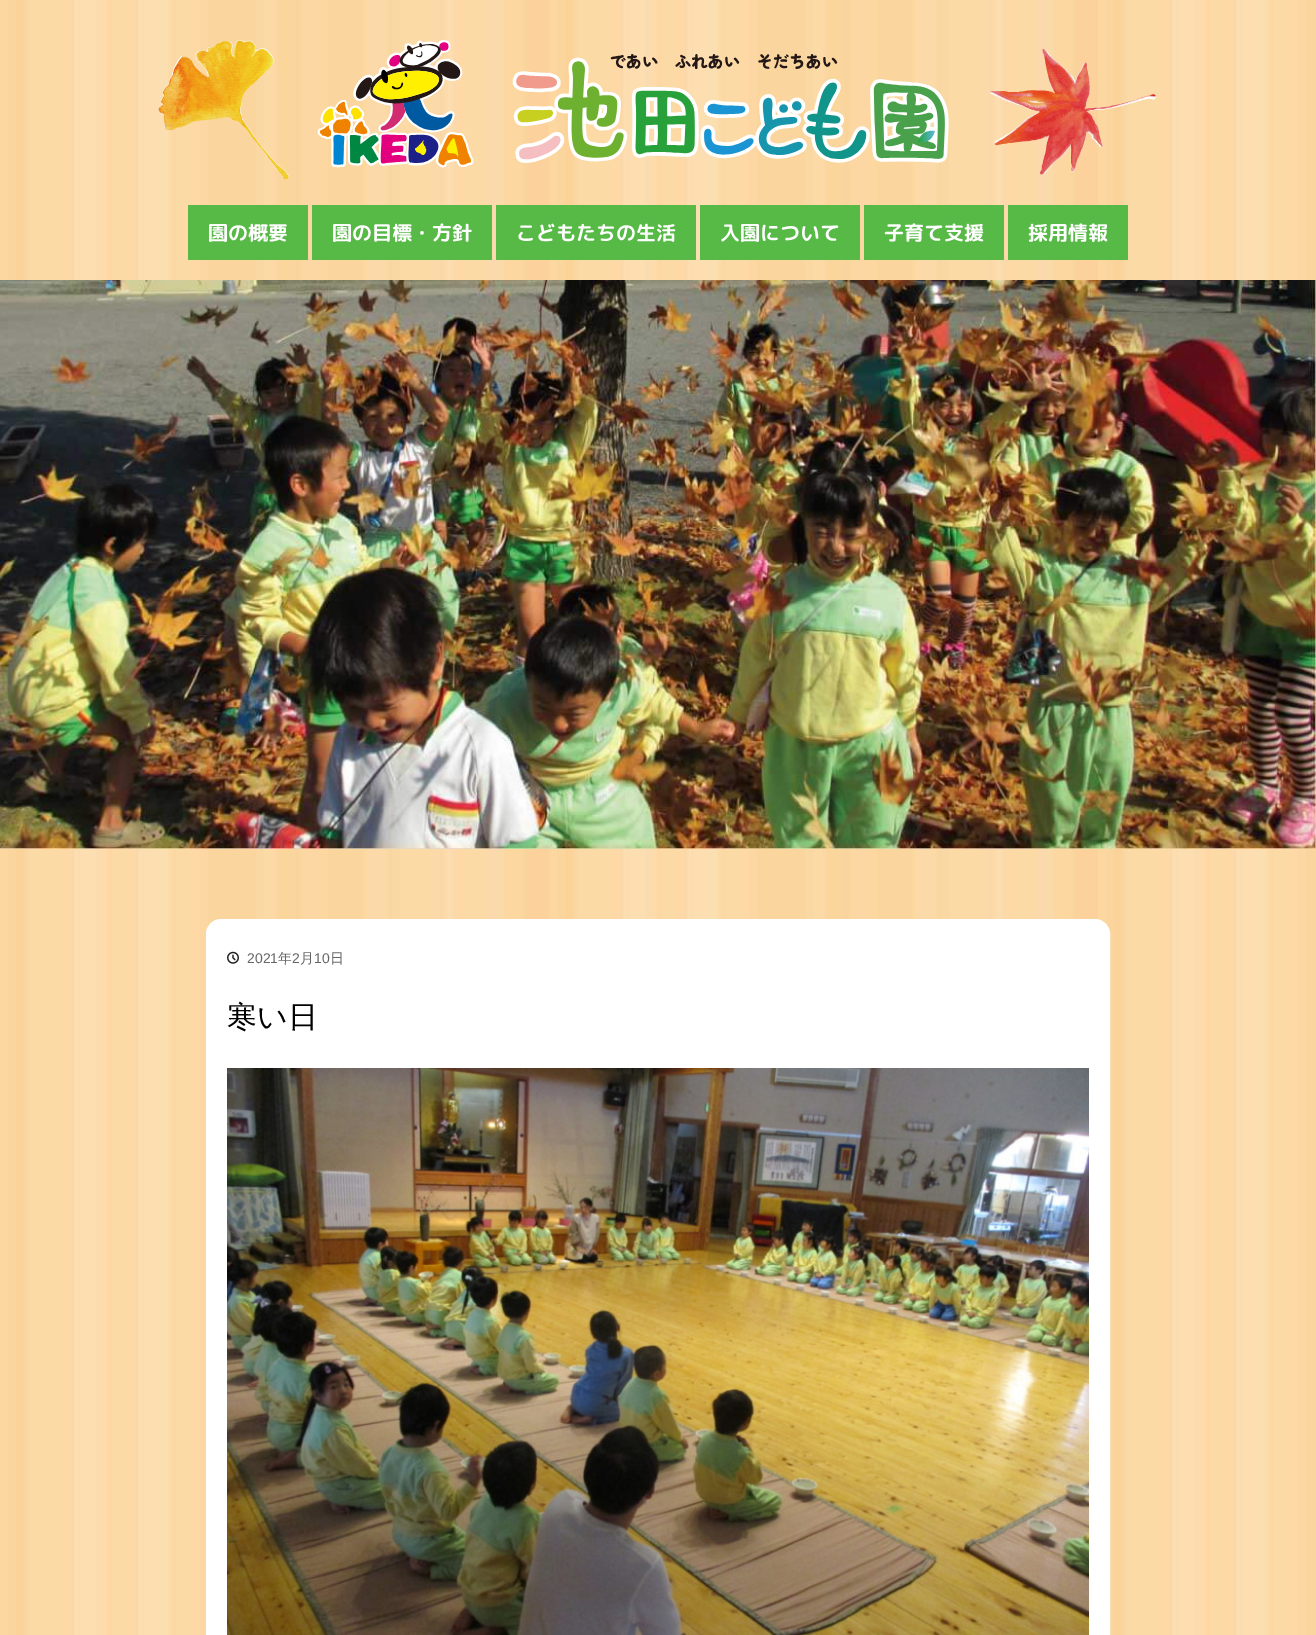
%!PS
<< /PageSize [1316 1635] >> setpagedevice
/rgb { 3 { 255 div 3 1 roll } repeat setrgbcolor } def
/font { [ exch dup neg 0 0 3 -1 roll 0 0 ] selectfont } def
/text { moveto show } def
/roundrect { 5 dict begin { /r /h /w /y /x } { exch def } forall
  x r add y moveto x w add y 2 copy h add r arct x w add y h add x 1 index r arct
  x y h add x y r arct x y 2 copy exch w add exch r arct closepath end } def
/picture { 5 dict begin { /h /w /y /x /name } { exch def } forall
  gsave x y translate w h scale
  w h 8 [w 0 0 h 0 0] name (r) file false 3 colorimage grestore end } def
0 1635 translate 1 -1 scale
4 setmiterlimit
255 255 255 rgb
0 0 1316 1635 rectfill
(img_01.rgb) 0 0 1316 1635 picture
(img_02.rgb) 158 40 998 140 picture
87 186 70 rgb
188 205 120 55 rectfill
312 205 180 55 rectfill
496 205 200 55 rectfill
700 205 160 55 rectfill
864 205 140 55 rectfill
1008 205 120 55 rectfill
(img_03.rgb) 0 280 1316 569 picture
255 255 255 rgb
206.5 919.5 903 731 14.5 roundrect gsave fill grestore
stroke
(img_04.rgb) 227 951 12 13 picture
(img_05.rgb) 227 1068 862 567 picture
/RoundedMplus1cBold-Bold 20 font
(園の概要) 208 240 text
(園の目標・方針) 332 240 text
(こどもたちの生活) 516 240 text
(入園について) 720 240 text
(子育て支援) 884 240 text
(採用情報) 1028 240 text
/LiberationSans-Regular 14 font
102 102 102 rgb
(2021) 247 963 text
/WenQuanYiZenHei-Medium 14 font
(年) 278 963 text
/LiberationSans-Regular 14 font
(2) 292 963 text
/WenQuanYiZenHei-Medium 14 font
(月) 300 963 text
/LiberationSans-Regular 14 font
(10) 314 963 text
/WenQuanYiZenHei-Medium 14 font
(日) 330 963 text
/WenQuanYiZenHei-Medium 30 font
0 0 0 rgb
(寒い日) 227 1027 text
showpage
